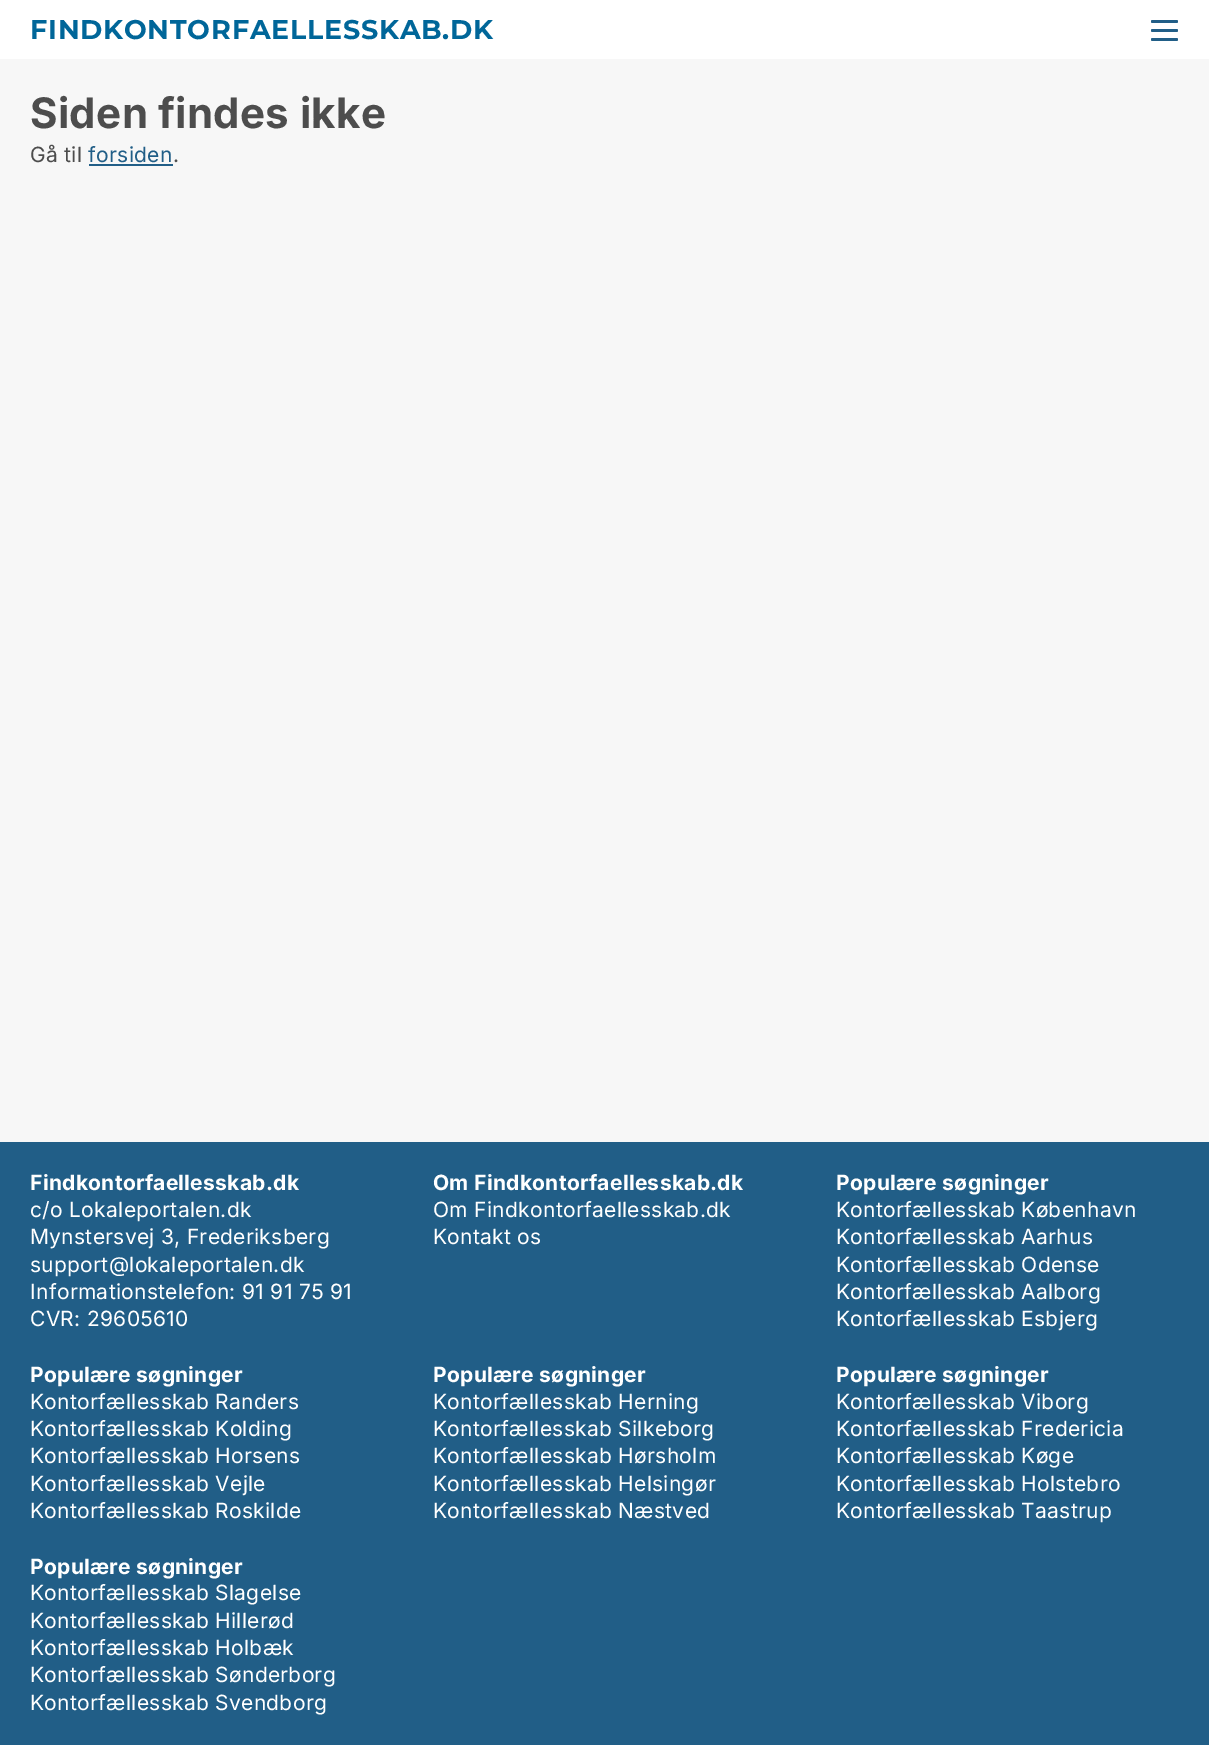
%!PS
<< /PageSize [1209 1745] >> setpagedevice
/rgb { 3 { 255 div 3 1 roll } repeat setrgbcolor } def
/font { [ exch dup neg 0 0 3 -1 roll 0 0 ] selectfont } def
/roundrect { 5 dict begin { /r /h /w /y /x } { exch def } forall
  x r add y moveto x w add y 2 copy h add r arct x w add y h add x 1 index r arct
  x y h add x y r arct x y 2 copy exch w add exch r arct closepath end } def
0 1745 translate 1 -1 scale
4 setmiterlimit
33 94 135 rgb
0 0 1209 1745 rectfill
255 255 255 rgb
0 0 1209 59 rectfill
33 94 135 rgb
1151 20 27 3 1.5 roundrect fill
1151 29 27 3 1.5 roundrect fill
1151 38 27 3 1.5 roundrect fill
247 247 247 rgb
0 59 1209 1083 rectfill
33 94 135 rgb
89 164 84 2 rectfill
/Montserrat-Bold 27 font
0 102 153 rgb
30 39 moveto 0.75 0 (FINDKONTORFAELLESSKAB.DK) ashow
/Inter-Bold 42 font
77 77 77 rgb
30 128 moveto 0.3 0 (Siden findes ikke) ashow
/Inter-Regular 21 font
30 162 moveto 0.3 0 (Gå til) ashow
33 94 135 rgb
88 162 moveto 0.3 0 (forsiden) ashow
77 77 77 rgb
173 162 moveto 0.3 0 (.) ashow
/Inter-Bold 21 font
255 255 255 rgb
30 1190 moveto 0.3 0 (Findkontorfaellesskab.dk) ashow
/Inter-Regular 21 font
30 1217 moveto 0.3 0 (c/o Lokaleportalen.dk) ashow
30 1244 moveto 0.3 0 (Mynstersvej 3, Frederiksberg) ashow
30 1272 moveto 0.3 0 (support@lokaleportalen.dk) ashow
30 1299 moveto 0.3 0 (Informationstelefon: 91 91 75 91) ashow
30 1326 moveto 0.3 0 (CVR: 29605610) ashow
/Inter-Bold 21 font
433 1190 moveto 0.3 0 (Om Findkontorfaellesskab.dk) ashow
/Inter-Regular 21 font
433 1217 moveto 0.3 0 (Om Findkontorfaellesskab.dk) ashow
433 1244 moveto 0.3 0 (Kontakt os) ashow
/Inter-Bold 21 font
836 1190 moveto 0.3 0 (Populære søgninger) ashow
/Inter-Regular 21 font
836 1217 moveto 0.3 0 (Kontorfællesskab København) ashow
836 1244 moveto 0.3 0 (Kontorfællesskab Aarhus) ashow
836 1272 moveto 0.3 0 (Kontorfællesskab Odense) ashow
836 1299 moveto 0.3 0 (Kontorfællesskab Aalborg) ashow
836 1326 moveto 0.3 0 (Kontorfællesskab Esbjerg) ashow
/Inter-Bold 21 font
30 1382 moveto 0.3 0 (Populære søgninger) ashow
/Inter-Regular 21 font
30 1409 moveto 0.3 0 (Kontorfællesskab Randers) ashow
30 1436 moveto 0.3 0 (Kontorfællesskab Kolding) ashow
30 1463 moveto 0.3 0 (Kontorfællesskab Horsens) ashow
30 1491 moveto 0.3 0 (Kontorfællesskab Vejle) ashow
30 1518 moveto 0.3 0 (Kontorfællesskab Roskilde) ashow
/Inter-Bold 21 font
433 1382 moveto 0.3 0 (Populære søgninger) ashow
/Inter-Regular 21 font
433 1409 moveto 0.3 0 (Kontorfællesskab Herning) ashow
433 1436 moveto 0.3 0 (Kontorfællesskab Silkeborg) ashow
433 1463 moveto 0.3 0 (Kontorfællesskab Hørsholm) ashow
433 1491 moveto 0.3 0 (Kontorfællesskab Helsingør) ashow
433 1518 moveto 0.3 0 (Kontorfællesskab Næstved) ashow
/Inter-Bold 21 font
836 1382 moveto 0.3 0 (Populære søgninger) ashow
/Inter-Regular 21 font
836 1409 moveto 0.3 0 (Kontorfællesskab Viborg) ashow
836 1436 moveto 0.3 0 (Kontorfællesskab Fredericia) ashow
836 1463 moveto 0.3 0 (Kontorfællesskab Køge) ashow
836 1491 moveto 0.3 0 (Kontorfællesskab Holstebro) ashow
836 1518 moveto 0.3 0 (Kontorfællesskab Taastrup) ashow
/Inter-Bold 21 font
30 1574 moveto 0.3 0 (Populære søgninger) ashow
/Inter-Regular 21 font
30 1600 moveto 0.3 0 (Kontorfællesskab Slagelse) ashow
30 1628 moveto 0.3 0 (Kontorfællesskab Hillerød) ashow
30 1655 moveto 0.3 0 (Kontorfællesskab Holbæk) ashow
30 1682 moveto 0.3 0 (Kontorfællesskab Sønderborg) ashow
30 1710 moveto 0.3 0 (Kontorfællesskab Svendborg) ashow
showpage
